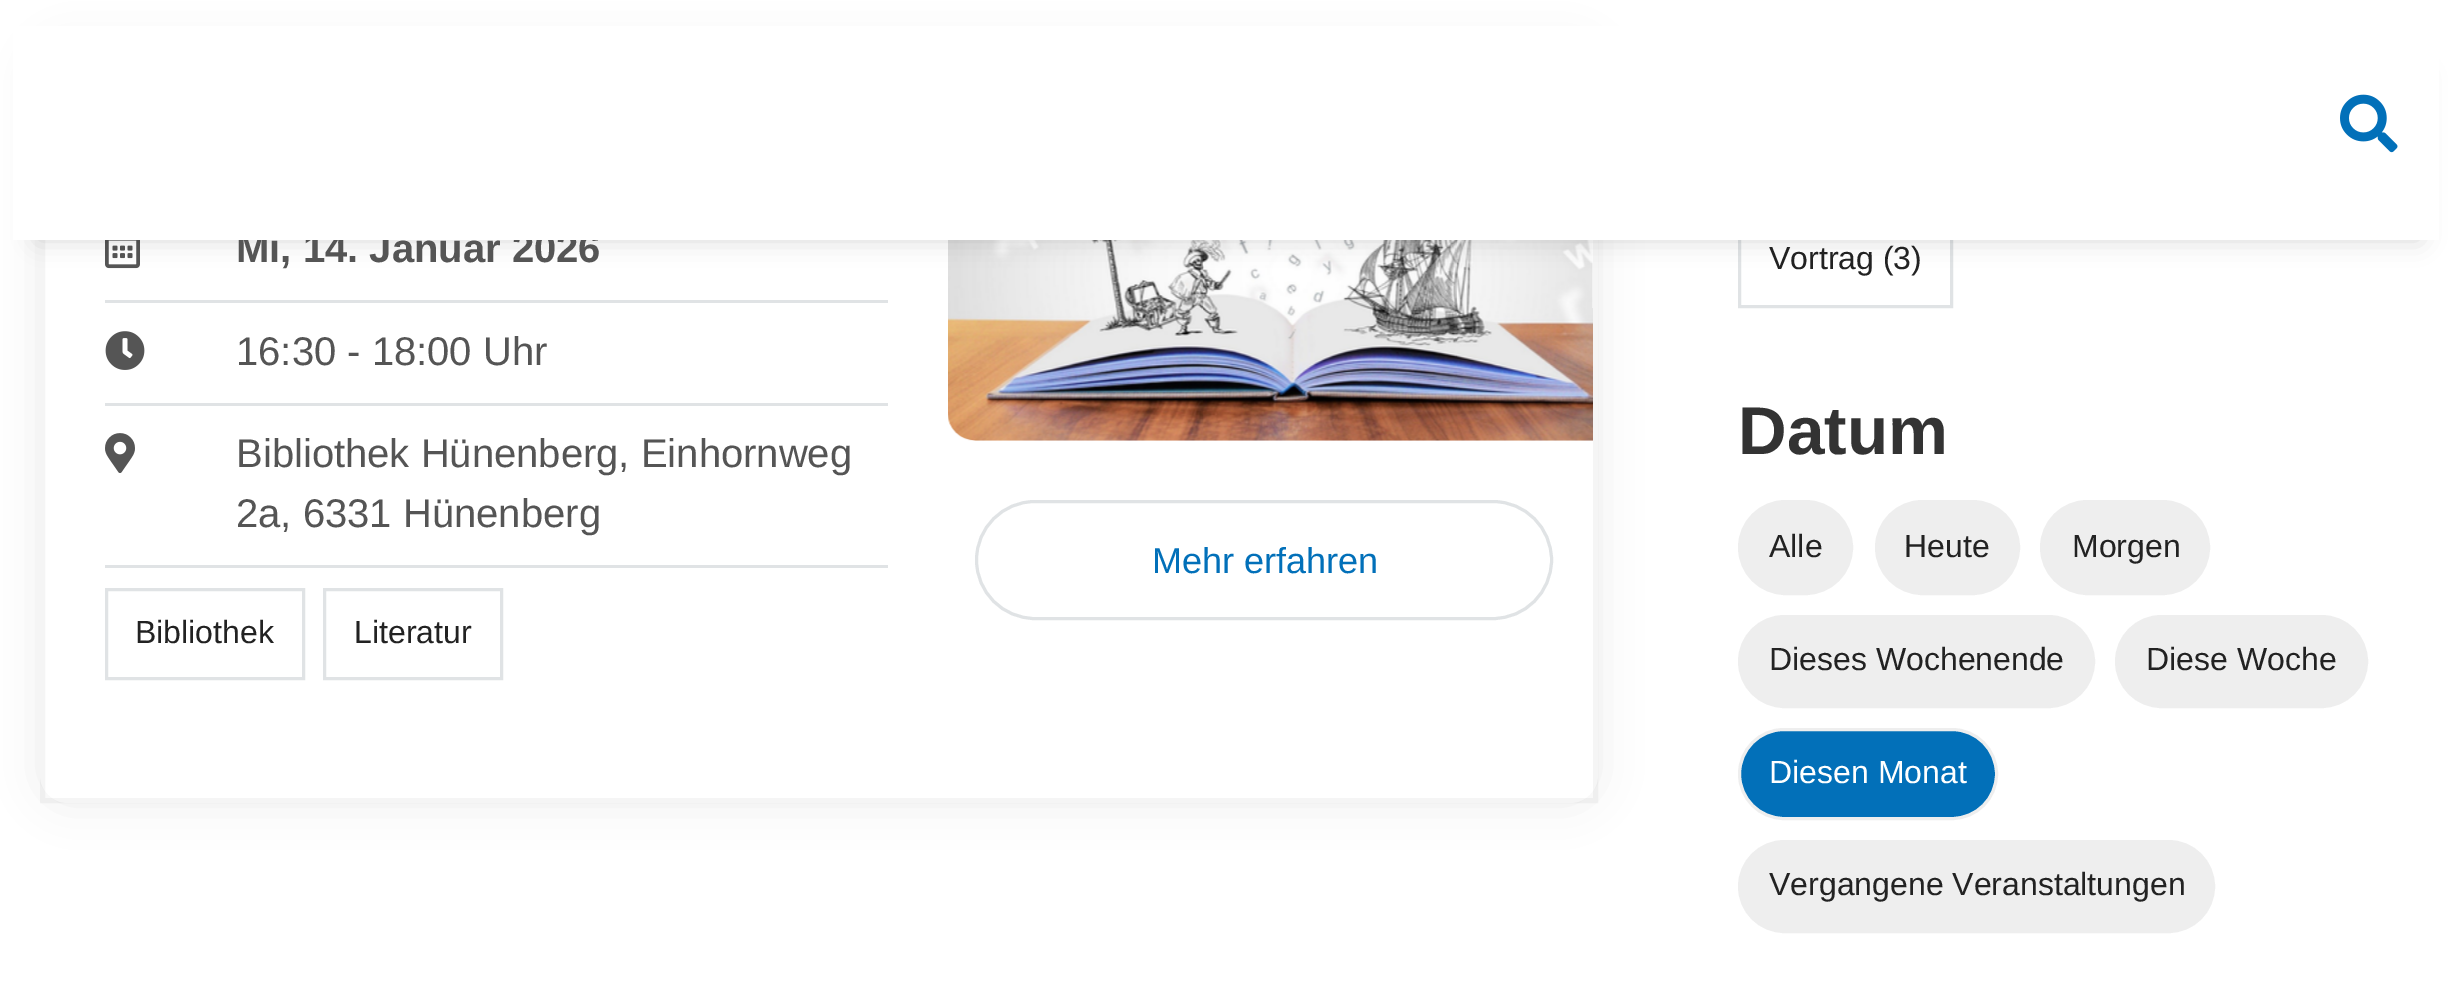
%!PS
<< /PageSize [2457 1004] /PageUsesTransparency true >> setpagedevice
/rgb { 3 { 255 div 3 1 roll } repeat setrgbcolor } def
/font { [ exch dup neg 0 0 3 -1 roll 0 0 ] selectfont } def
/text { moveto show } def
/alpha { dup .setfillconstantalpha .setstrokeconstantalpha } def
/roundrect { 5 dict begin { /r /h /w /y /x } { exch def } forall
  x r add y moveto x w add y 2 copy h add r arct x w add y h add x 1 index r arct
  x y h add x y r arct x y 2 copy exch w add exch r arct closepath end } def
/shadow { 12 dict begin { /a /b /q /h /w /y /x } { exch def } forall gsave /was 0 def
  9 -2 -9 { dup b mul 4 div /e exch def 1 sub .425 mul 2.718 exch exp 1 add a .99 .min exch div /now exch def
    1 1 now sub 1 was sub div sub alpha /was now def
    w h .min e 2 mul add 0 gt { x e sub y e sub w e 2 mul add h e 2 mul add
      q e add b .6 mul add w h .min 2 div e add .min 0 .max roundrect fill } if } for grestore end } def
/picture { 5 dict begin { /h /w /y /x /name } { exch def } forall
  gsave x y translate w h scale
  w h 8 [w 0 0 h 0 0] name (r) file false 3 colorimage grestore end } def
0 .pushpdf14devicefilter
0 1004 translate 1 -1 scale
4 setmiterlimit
255 255 255 rgb
0 0 2457 1004 rectfill
0 0 0 rgb
40 48 1558 755 28 21 0.07 shadow
255 255 255 rgb
40 48 1558 755 28 roundrect fill
0.04 alpha
0 0 0 rgb
5 setlinewidth
42.5 50.5 1553 750 rectstroke
1 alpha
(img_02.rgb) 105 240 35 29 picture
(img_05.rgb) 948 240 645 201 picture
224 227 229 rgb
3 setlinewidth
1739.5 216.5 212 90 rectstroke
0 0 0 rgb
38 75 2382 165 0 12.5 0.15 shadow
224 227 229 rgb
105 300 783 3 rectfill
(img_03.rgb) 105 331 40 39 picture
105 403 783 3 rectfill
(img_04.rgb) 105 433 30 40 picture
105 565 783 3 rectfill
106.5 589.5 197 89 rectstroke
324.5 589.5 177 89 rectstroke
976.5 501.5 575 117 58.5 roundrect stroke
238 238 238 rgb
1739.5 501.5 112 92 46 roundrect gsave fill grestore
stroke
1876.5 501.5 142 92 46 roundrect gsave fill grestore
stroke
2041.5 501.5 167 92 46 roundrect gsave fill grestore
stroke
1739.5 616.5 354 90 45 roundrect gsave fill grestore
stroke
2116.5 616.5 250 90 45 roundrect gsave fill grestore
stroke
2 112 185 rgb
1739.5 729.5 257 89 44.5 roundrect gsave fill grestore
238 238 238 rgb
stroke
1739.5 841.5 474 90 45 roundrect gsave fill grestore
stroke
/LiberationSans-Bold 40 font
85 85 85 rgb
(Mi, 14. Januar 2026) 236 262 text
255 255 255 rgb
13 26 2426 214 rectfill
(img_01.rgb) 2340 94 58 59 picture
/LiberationSans-Regular 40 font
85 85 85 rgb
(16:30 - 18:00 Uhr) 236 365 text
(Bibliothek Hünenberg, Einhornweg) 236 467 text
(2a, 6331 Hünenberg) 236 527 text
/LiberationSans-Regular 32 font
34 34 34 rgb
(Bibliothek) 135 643 text
(Literatur) 354 643 text
/LiberationSans-Regular 36 font
2 112 185 rgb
(Mehr erfahren) 1152 573 text
/LiberationSans-Regular 32 font
34 34 34 rgb
(Vortrag \(3\)) 1769 269 text
/LiberationSans-Bold 67.5 font
51 51 51 rgb
(Datum) 1738 454 text
/LiberationSans-Regular 32 font
34 34 34 rgb
(Alle) 1769 557 text
(Heute) 1904 557 text
(Morgen) 2072 557 text
(Dieses Wochenende) 1769 670 text
(Diese Woche) 2146 670 text
255 255 255 rgb
(Diesen Monat) 1769 783 text
34 34 34 rgb
(Vergangene Veranstaltungen) 1769 895 text
.poppdf14devicefilter showpage
